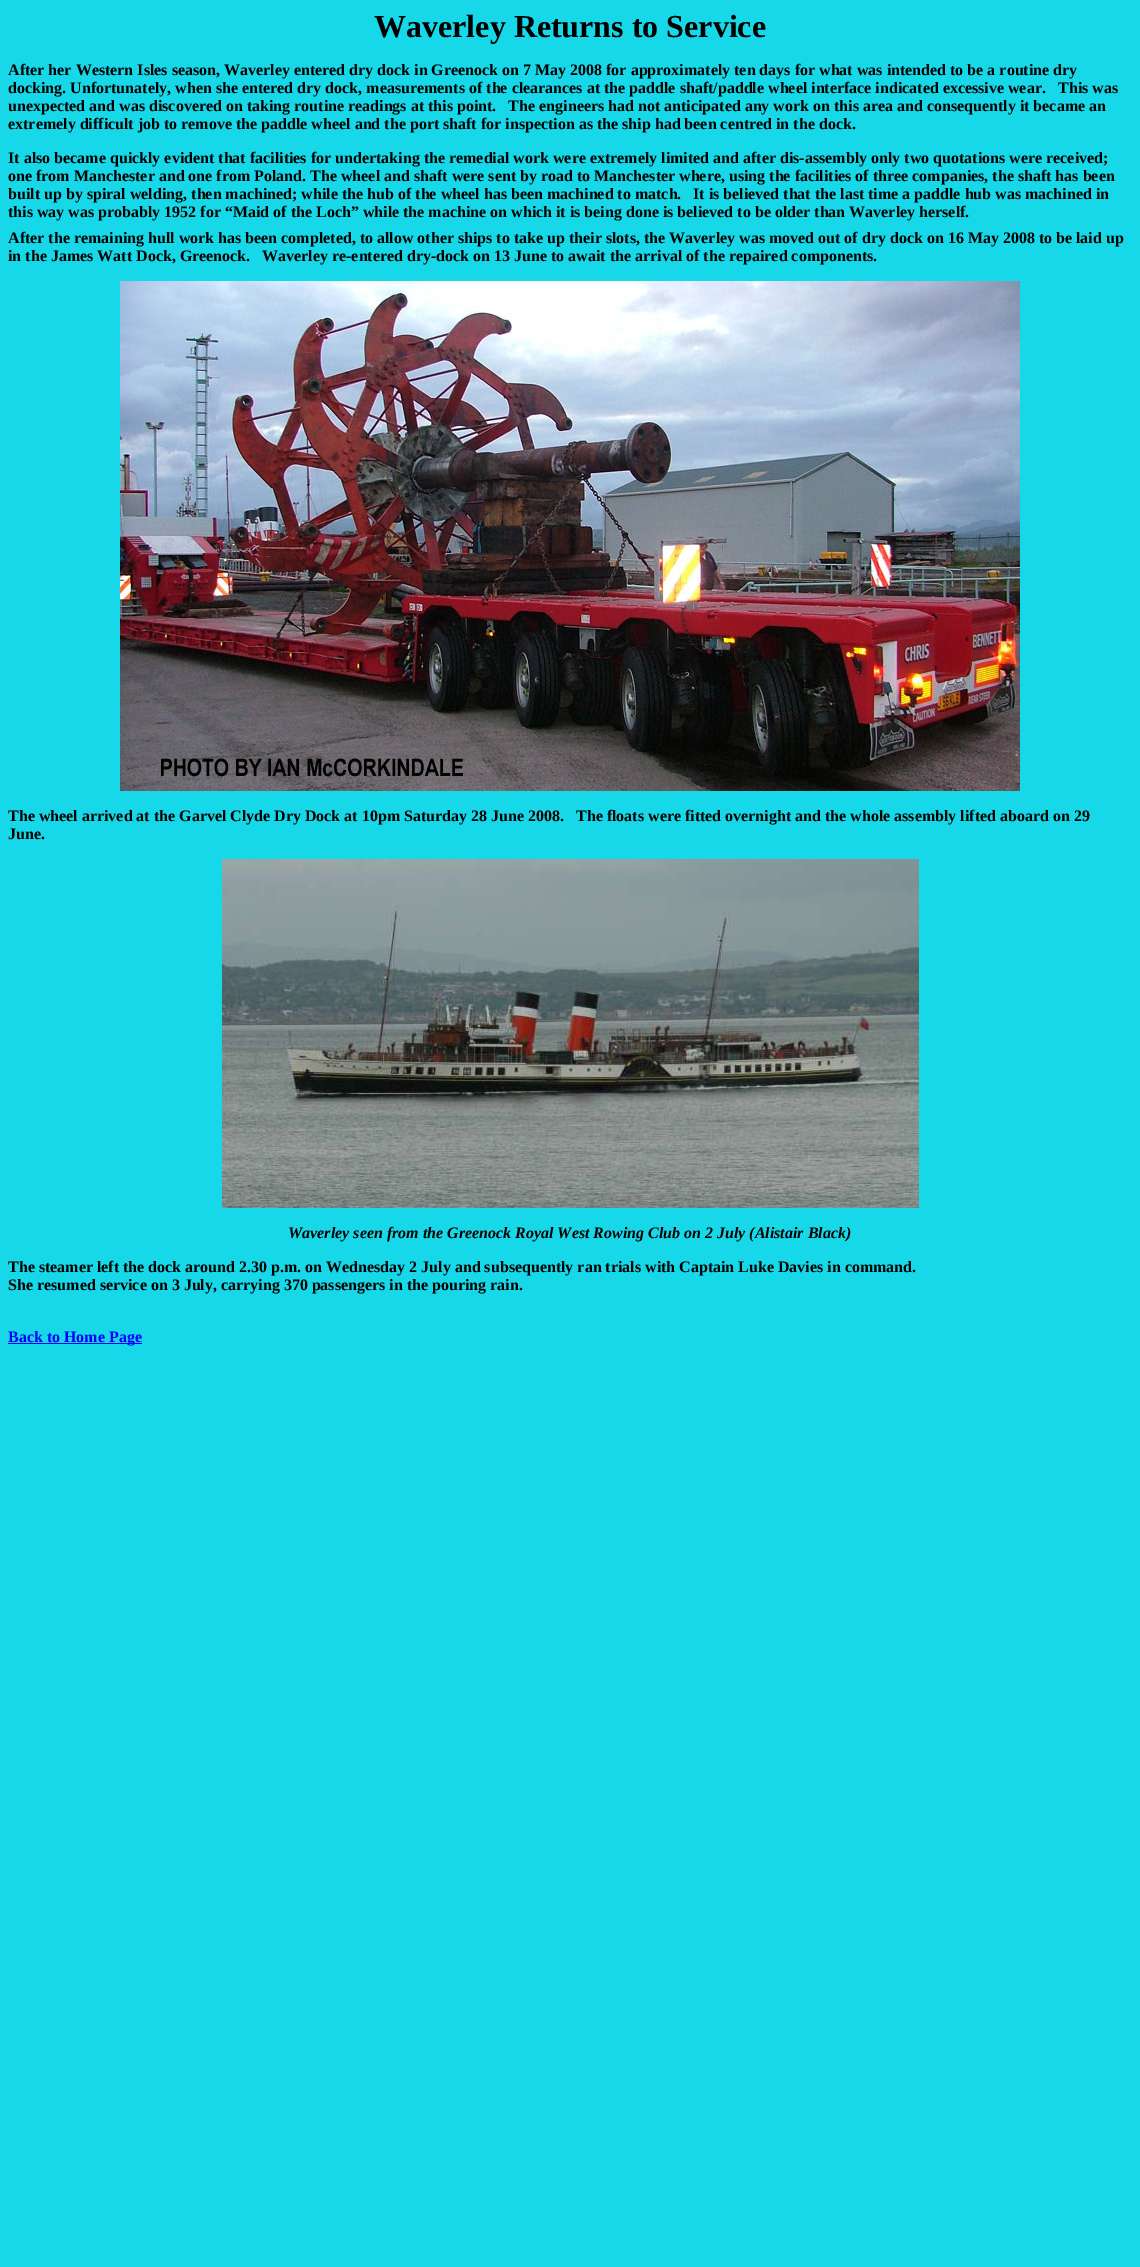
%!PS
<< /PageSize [1140 2267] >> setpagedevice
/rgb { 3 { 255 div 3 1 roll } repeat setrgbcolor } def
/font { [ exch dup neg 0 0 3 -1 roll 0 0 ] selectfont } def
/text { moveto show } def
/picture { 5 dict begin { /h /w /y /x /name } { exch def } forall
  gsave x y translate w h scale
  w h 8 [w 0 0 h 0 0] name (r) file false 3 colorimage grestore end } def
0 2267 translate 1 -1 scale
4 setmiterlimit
23 216 232 rgb
0 0 1140 2267 rectfill
(img_01.rgb) 120 281 900 510 picture
(img_02.rgb) 222 859 697 349 picture
0 0 255 rgb
8 1343 134 1 rectfill
/LiberationSerif-Bold 32 font
0 0 0 rgb
(Waverley Returns to Service) 374 37 text
/LiberationSerif-Bold 16 font
(After her Western Isles season, Waverley entered dry dock in Greenock on 7 May 2008 for approximately ten days for what was intended to be a routine dry) 8 75 text
(docking. Unfortunately, when she entered dry dock, measurements of the clearances at the paddle shaft/paddle wheel interface indicated excessive wear.) 8 93 text
(This was) 1058 93 text
(unexpected and was discovered on taking routine readings at this point.   The engineers had not anticipated any work on this area and consequently it became an) 8 111 text
(extremely difficult job to remove the paddle wheel and the port shaft for inspection as the ship had been centred in the dock.) 8 129 text
(It also became quickly evident that facilities for undertaking the remedial work were extremely limited and after dis-assembly only two quotations were received;) 8 163 text
(one from Manchester and one from Poland. The wheel and shaft were sent by road to Manchester where, using the facilities of three companies, the shaft has been) 8 181 text
(built up by spiral welding, then machined; while the hub of the wheel has been machined to match.) 8 199 text
(It is believed that the last time a paddle hub was machined in) 693 199 text
(this way was probably 1952 for “Maid of the Loch” while the machine on which it is being done is believed to be older than Waverley herself.) 8 217 text
(After the remaining hull work has been completed, to allow other ships to take up their slots, the Waverley was moved out of dry dock on 16 May 2008 to be laid up) 8 243 text
(in the James Watt Dock, Greenock.   Waverley re-entered dry-dock on 13 June to await the arrival of the repaired components.) 8 261 text
(The wheel arrived at the Garvel Clyde Dry Dock at 10pm Saturday 28 June 2008.   The floats were fitted overnight and the whole assembly lifted aboard on 29) 8 821 text
(June.) 8 839 text
/LiberationSerif-BoldItalic 16 font
(Waverley seen from the Greenock Royal West Rowing Club on 2 July \(Alistair Black\)) 288 1238 text
/LiberationSerif-Bold 16 font
(The steamer left the dock around 2.30 p.m. on Wednesday 2 July and subsequently ran trials with Captain Luke Davies in command.) 8 1272 text
(She resumed service on 3 July, carrying 370 passengers in the pouring rain.) 8 1290 text
0 0 255 rgb
(Back to Home Page) 8 1342 text
showpage
